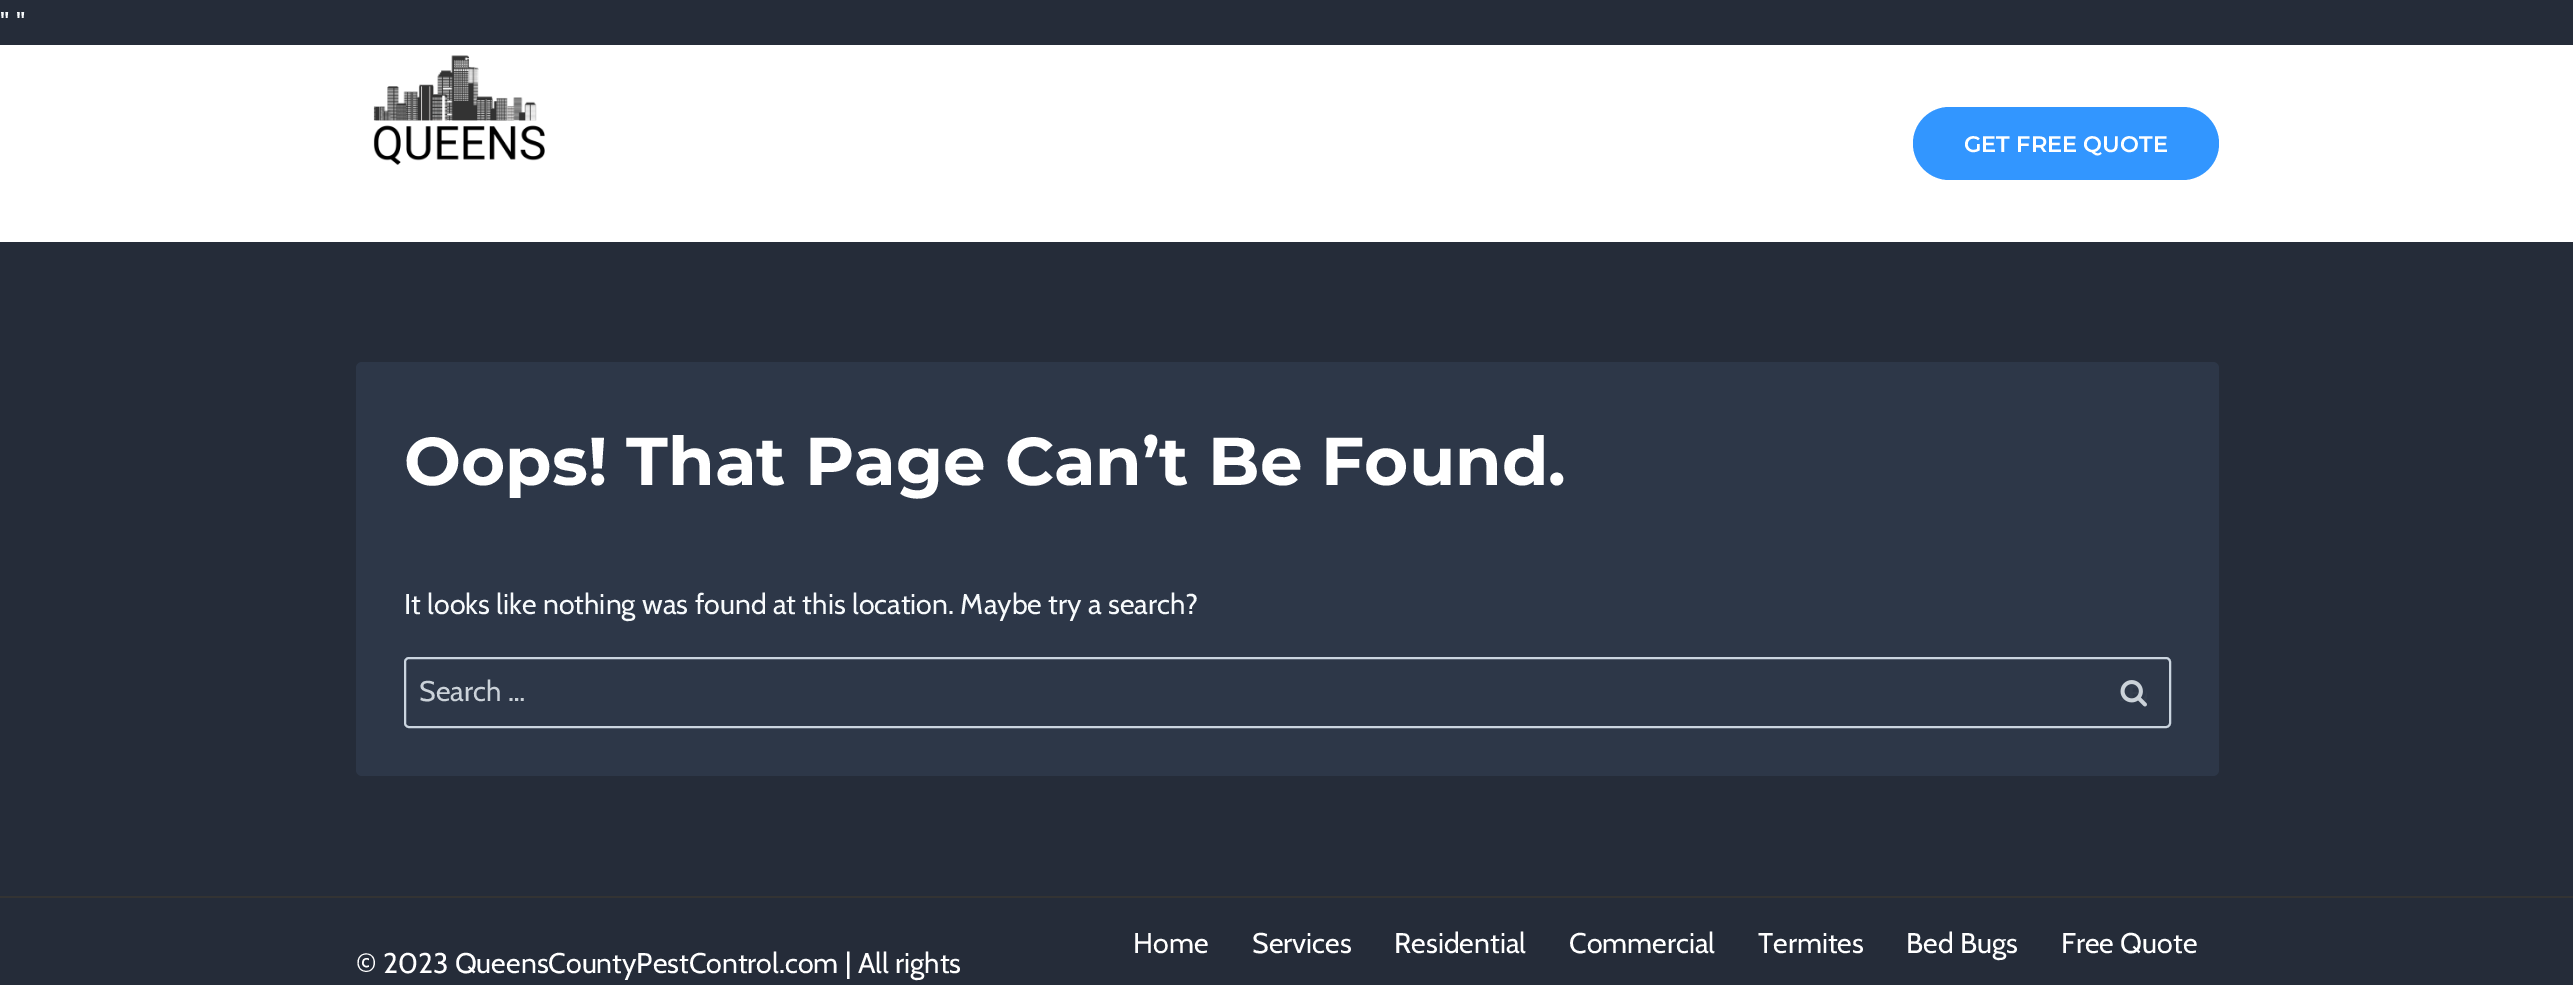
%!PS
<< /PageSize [2573 985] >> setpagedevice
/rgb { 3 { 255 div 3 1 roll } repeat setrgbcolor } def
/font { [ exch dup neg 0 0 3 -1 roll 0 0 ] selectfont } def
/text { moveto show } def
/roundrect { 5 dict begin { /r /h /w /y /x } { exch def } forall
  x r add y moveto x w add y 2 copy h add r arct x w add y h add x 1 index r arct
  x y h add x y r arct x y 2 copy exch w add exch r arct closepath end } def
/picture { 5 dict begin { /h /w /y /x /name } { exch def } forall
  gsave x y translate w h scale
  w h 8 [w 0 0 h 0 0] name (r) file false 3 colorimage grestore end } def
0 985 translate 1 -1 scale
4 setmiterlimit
37 44 57 rgb
0 0 2573 985 rectfill
255 255 255 rgb
0 45 2573 197 rectfill
(img_01.rgb) 373 55 172 110 picture
50 150 255 rgb
1913 107 306 73 36.5 roundrect fill
45 55 72 rgb
356 362 1863 414 6 roundrect fill
203 213 224 rgb
2 setlinewidth
405 658 1765 69 4 roundrect stroke
(img_02.rgb) 2120 680 27 27 picture
51 51 51 rgb
0 896 2573 2 rectfill
/Cabin-Regular 28.5 font
247 250 252 rgb
(" ") 0 32 text
/Montserrat-SemiBold 22.5 font
255 255 255 rgb
(GET FREE QUOTE) 1964 152 text
/Montserrat-Bold 67.5 font
(Oops! That Page Can’t Be Found.) 404 485 text
/Cabin-Regular 28.5 font
247 250 252 rgb
(It looks like nothing was found at this location. Maybe try a search?) 404 614 text
203 210 217 rgb
(Search …) 419 701 text
255 255 255 rgb
(Home) 1133 953 text
(Services) 1252 953 text
(Residential) 1394 953 text
(Commercial) 1569 953 text
(Termites) 1758 953 text
(Bed Bugs) 1906 953 text
(Free Quote) 2061 953 text
(© 2023 QueensCountyPestControl.com | All rights) 356 973 text
showpage
